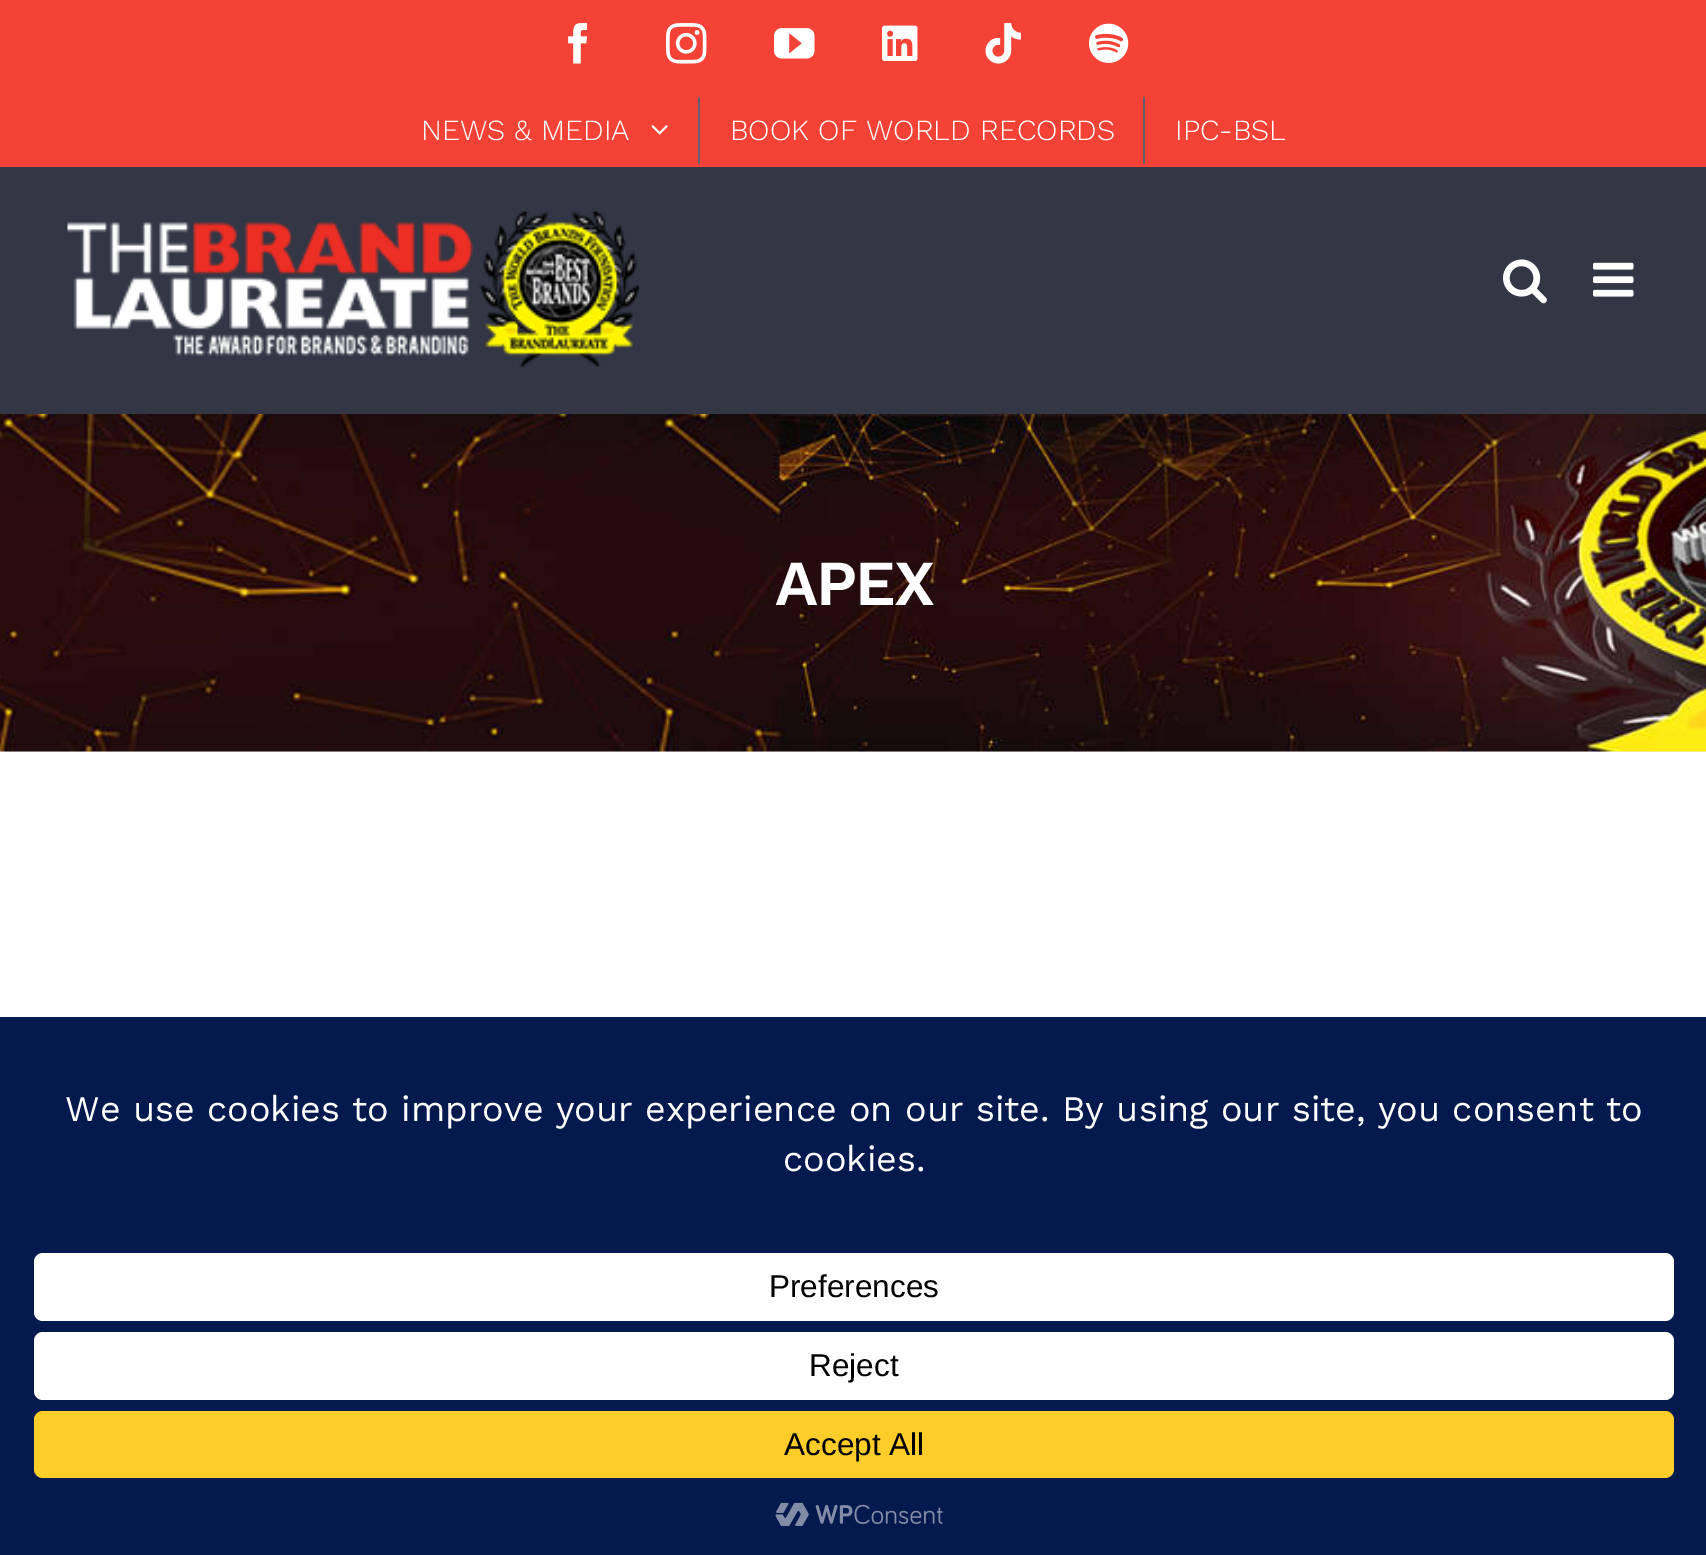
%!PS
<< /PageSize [1706 1555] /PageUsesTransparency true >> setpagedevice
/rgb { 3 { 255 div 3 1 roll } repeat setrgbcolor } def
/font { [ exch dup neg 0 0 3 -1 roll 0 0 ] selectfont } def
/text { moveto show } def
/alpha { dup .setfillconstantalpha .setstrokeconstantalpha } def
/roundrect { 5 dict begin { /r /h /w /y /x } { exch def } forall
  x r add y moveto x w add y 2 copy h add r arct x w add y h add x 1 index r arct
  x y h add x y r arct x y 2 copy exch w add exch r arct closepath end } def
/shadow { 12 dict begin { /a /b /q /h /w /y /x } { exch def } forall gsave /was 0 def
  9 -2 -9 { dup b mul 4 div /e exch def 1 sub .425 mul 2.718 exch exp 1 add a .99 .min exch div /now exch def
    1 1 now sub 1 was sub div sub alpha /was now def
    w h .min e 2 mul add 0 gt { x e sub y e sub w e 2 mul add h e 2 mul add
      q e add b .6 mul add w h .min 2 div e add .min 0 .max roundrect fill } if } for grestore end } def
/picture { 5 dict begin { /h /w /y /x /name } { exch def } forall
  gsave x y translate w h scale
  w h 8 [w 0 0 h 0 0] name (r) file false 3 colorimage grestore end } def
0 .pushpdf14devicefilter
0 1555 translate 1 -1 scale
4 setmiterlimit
255 255 255 rgb
0 0 1706 1555 rectfill
232 232 232 rgb
0 751 1706 1 rectfill
(img_11.rgb) 0 414 1706 338 picture
0 0 0 rgb
5 27 1698 405 0 56 0.14 shadow
244 67 54 rgb
0 0 1706 167 rectfill
(img_01.rgb) 568 23 20 41 picture
(img_02.rgb) 666 23 41 41 picture
(img_03.rgb) 774 28 41 31 picture
(img_04.rgb) 882 25 36 36 picture
(img_05.rgb) 985 23 36 41 picture
(img_06.rgb) 1089 23 40 40 picture
(img_07.rgb) 651 125 17 10 picture
95 97 111 rgb
698 97 2 67 rectfill
1143 97 2 67 rectfill
51 54 69 rgb
0 167 1706 247 rectfill
(img_08.rgb) 67 211 572 156 picture
(img_09.rgb) 1503 259 44 45 picture
(img_10.rgb) 1593 262 41 35 picture
4 25 78 rgb
0 1017 1706 538 rectfill
255 255 255 rgb
34 1253 1640 68 9 roundrect fill
34 1332 1640 68 9 roundrect fill
255 205 42 rgb
34 1411 1640 67 9 roundrect fill
(img_12.rgb) 775 1502 168 24 picture
/WorkSans-Light 29.25 font
255 255 255 rgb
(NEWS & MEDIA) 421 140 text
(BOOK OF WORLD RECORDS) 730 140 text
(IPC-BSL) 1175 140 text
/WorkSans-SemiBold 64 font
775 605 moveto -2 0 (APEX) ashow
/WorkSans-Regular 36 font
(We use cookies to improve your experience on our site. By using our site, you consent to) 65 1121 text
(cookies.) 783 1171 text
/LiberationSans-Regular 31.5 font
0 0 0 rgb
(Preferences) 769 1297 text
(Reject) 809 1376 text
(Accept All) 784 1455 text
.poppdf14devicefilter showpage
